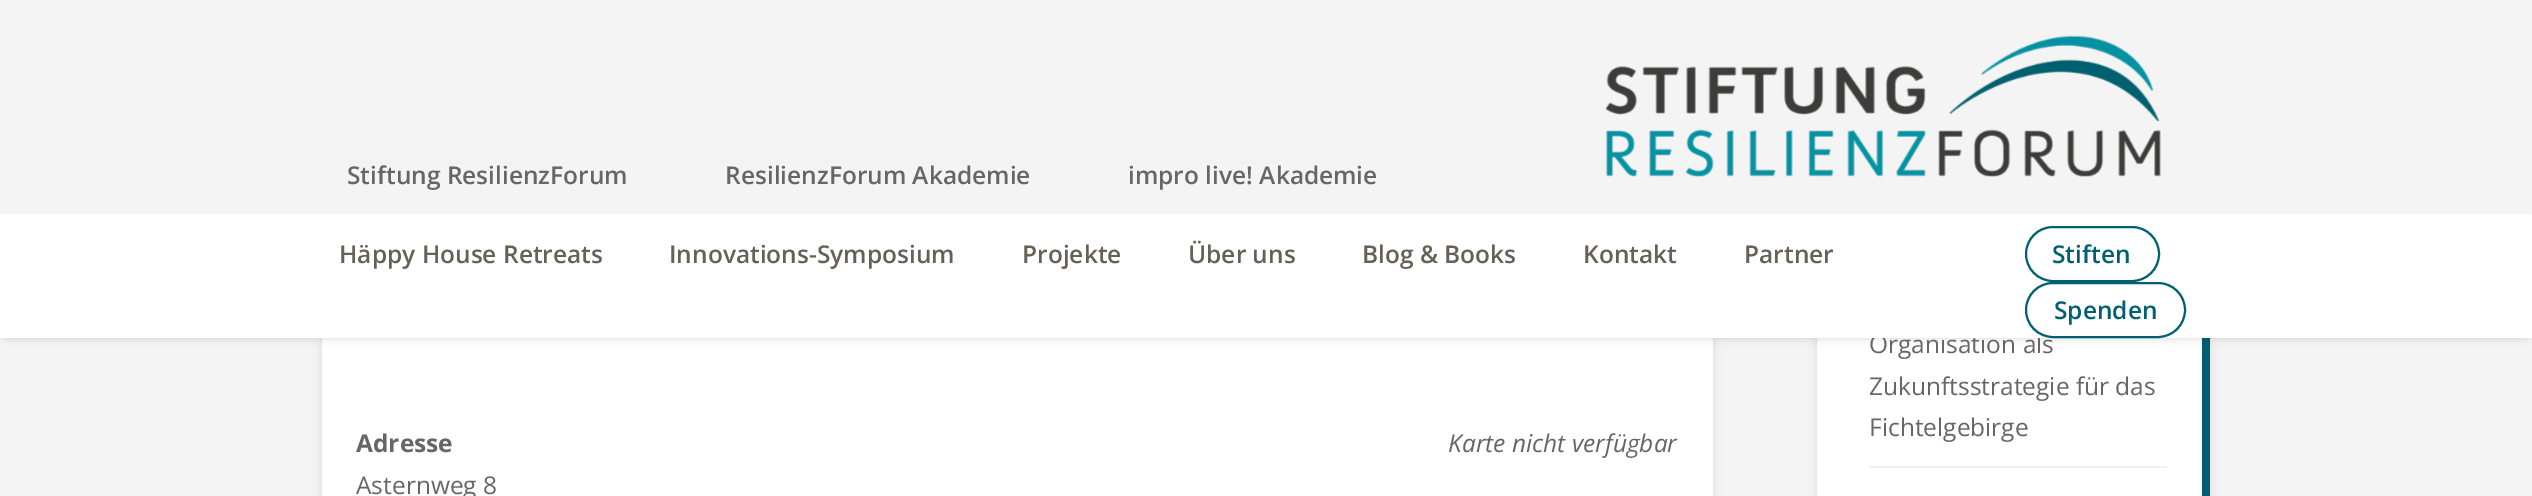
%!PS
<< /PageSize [2532 496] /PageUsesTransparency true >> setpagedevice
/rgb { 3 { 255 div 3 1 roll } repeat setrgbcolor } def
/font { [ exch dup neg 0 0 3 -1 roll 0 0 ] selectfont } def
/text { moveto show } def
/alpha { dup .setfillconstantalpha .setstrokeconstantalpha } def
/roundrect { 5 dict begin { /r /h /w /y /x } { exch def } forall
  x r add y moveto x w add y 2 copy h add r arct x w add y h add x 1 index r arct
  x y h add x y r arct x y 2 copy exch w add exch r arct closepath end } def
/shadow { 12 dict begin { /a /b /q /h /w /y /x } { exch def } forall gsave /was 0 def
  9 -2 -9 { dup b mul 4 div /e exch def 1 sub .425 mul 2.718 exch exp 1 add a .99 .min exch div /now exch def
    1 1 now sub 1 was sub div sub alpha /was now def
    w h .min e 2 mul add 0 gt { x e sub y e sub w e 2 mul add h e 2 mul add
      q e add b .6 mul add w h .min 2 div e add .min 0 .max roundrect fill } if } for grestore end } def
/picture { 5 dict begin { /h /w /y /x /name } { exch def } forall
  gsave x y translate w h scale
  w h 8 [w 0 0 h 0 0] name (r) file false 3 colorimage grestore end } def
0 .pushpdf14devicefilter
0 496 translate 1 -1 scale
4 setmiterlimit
244 244 244 rgb
0 0 2532 496 rectfill
0 0 0 rgb
1817 170 393 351 11 4.5 0.1 shadow
255 255 255 rgb
1817 338 385 158 rectfill
0 96 113 rgb
2202 338 8 158 rectfill
0 0 0 rgb
322 170 1391 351 11 4.5 0.1 shadow
255 255 255 rgb
322 338 1391 158 rectfill
0 0 0 rgb
0 210 2532 128 7 4.5 0.15 shadow
240 240 240 rgb
1869 466 298 2 rectfill
/OpenSans-Regular 24.5 font
102 102 102 rgb
(Organisation als) 1869 353 text
255 255 255 rgb
7 210 moveto 2518 0 rlineto 4 0 7 3 7 7 rcurveto 0 121 rlineto -2532 0 rlineto 0 -121 rlineto 0 -4 3 -7 7 -7 rcurveto closepath fill
244 244 244 rgb
0 164 2532 50 rectfill
/OpenSans-SemiBold 24.5 font
102 102 102 rgb
(impro live! Akademie) 1128 184 text
(ResilienzForum Akademie) 725 184 text
(Stiftung ResilienzForum) 347 184 text
(img_01.rgb) 1605 35 556 142 picture
0 96 113 rgb
2 setlinewidth
2026 283 159 54 27 roundrect stroke
(Spenden) 2054 319 text
2026 227 133 54 27 roundrect stroke
(Stiften) 2052 263 text
102 96 86 rgb
(Partner) 1744 263 text
(Kontakt) 1583 263 text
(Blog & Books) 1362 263 text
(Über uns) 1188 263 text
(Projekte) 1022 263 text
(Innovations-Symposium) 669 263 text
(Häppy House Retreats) 339 263 text
/OpenSans-Regular 24.5 font
102 102 102 rgb
(Zukunftsstrategie für das) 1869 395 text
(Fichtelgebirge) 1869 436 text
/OpenSans-Bold 24.5 font
(Adresse) 356 452 text
/OpenSans-Regular 24.5 font
(Asternweg 8) 356 494 text
/OpenSans-Italic 24.5 font
(Karte nicht verfügbar) 1448 452 text
.poppdf14devicefilter showpage
